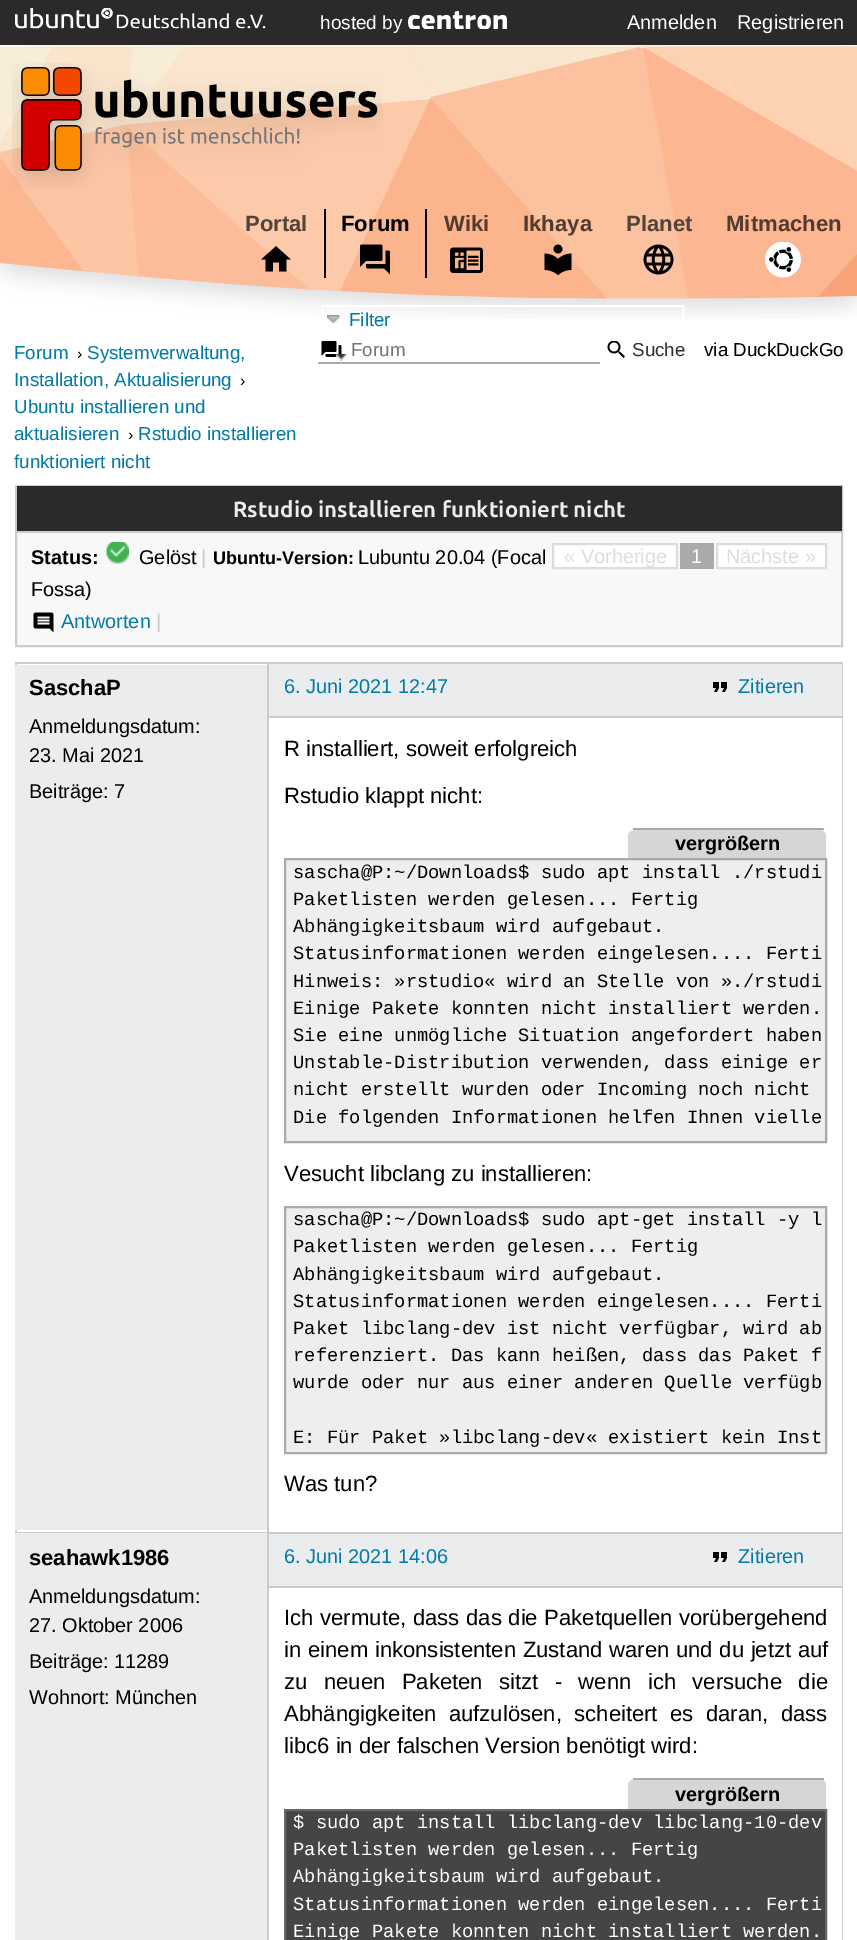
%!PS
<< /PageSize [857 1940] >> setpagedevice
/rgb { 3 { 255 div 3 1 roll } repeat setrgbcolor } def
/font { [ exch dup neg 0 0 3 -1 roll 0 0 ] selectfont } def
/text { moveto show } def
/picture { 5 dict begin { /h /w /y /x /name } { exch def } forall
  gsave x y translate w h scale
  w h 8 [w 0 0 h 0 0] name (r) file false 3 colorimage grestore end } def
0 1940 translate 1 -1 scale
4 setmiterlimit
255 255 255 rgb
0 0 857 1940 rectfill
43 41 41 rgb
0 0 857 45 rectfill
(img_01.rgb) 15 8 251 21 picture
(img_02.rgb) 408 11 99 18 picture
(img_03.rgb) 0 45 857 274 picture
(img_04.rgb) 12 63 371 126 picture
(img_05.rgb) 261 246 30 26 picture
0 0 0 rgb
425 209 2 69 rectfill
324 209 2 69 rectfill
(img_06.rgb) 360 244 30 31 picture
(img_07.rgb) 450 247 33 26 picture
(img_08.rgb) 544 244 28 32 picture
(img_09.rgb) 643 244 31 31 picture
(img_10.rgb) 765 242 36 36 picture
255 255 255 rgb
2 setlinewidth
322 306 361 34 rectstroke
(img_11.rgb) 327 315 14 9 picture
(img_13.rgb) 321 341 21 20 picture
(img_12.rgb) 335 354 12 6 picture
170 170 170 rgb
318 362 282 2 rectfill
(img_14.rgb) 607 341 18 17 picture
248 248 248 rgb
17 533 824 112 rectfill
204 204 204 rgb
16 486 826 160 rectstroke
43 41 41 rgb
17 486 825 45 rectfill
204 204 204 rgb
17 531 825 2 rectfill
(img_15.rgb) 106 542 23 22 picture
255 255 255 rgb
553 544 moveto 124 0 rlineto 0 24 rlineto -124 0 rlineto closepath gsave fill grestore
221 221 221 rgb
stroke
170 170 170 rgb
680 543 34 26 rectfill
255 255 255 rgb
717 544 moveto 109 0 rlineto 0 24 rlineto -109 0 rlineto closepath gsave fill grestore
221 221 221 rgb
stroke
(img_16.rgb) 33 612 21 21 picture
204 204 204 rgb
15 662 828 2 rectfill
842 662 1 1278 rectfill
15 662 2 870 rectfill
234 236 238 rgb
15 665 252 865 rectfill
269 664 573 52 rectfill
204 204 204 rgb
269 716 573 2 rectfill
(img_17.rgb) 713 682 14 10 picture
214 214 214 rgb
636 830 moveto 183 0 rlineto 4 0 7 2 7 6 rcurveto 0 22 rlineto -198 0 rlineto 0 -22 rlineto 0 -4 4 -6 8 -6 rcurveto closepath fill
168 168 168 rgb
633 828 191 2 rectfill
238 238 238 rgb
285 859 moveto 541 0 rlineto 0 283 rlineto -541 0 rlineto closepath gsave fill grestore
170 170 170 rgb
stroke
238 238 238 rgb
285 1207 moveto 541 0 rlineto 0 246 rlineto -541 0 rlineto closepath gsave fill grestore
170 170 170 rgb
stroke
204 204 204 rgb
267 1532 576 2 rectfill
15 1532 254 1 rectfill
267 662 2 1278 rectfill
234 236 238 rgb
15 1533 252 407 rectfill
269 1534 573 52 rectfill
204 204 204 rgb
269 1586 573 2 rectfill
(img_17.rgb) 713 1552 14 10 picture
214 214 214 rgb
636 1779 moveto 183 0 rlineto 4 0 7 3 7 6 rcurveto 0 24 rlineto -198 0 rlineto 0 -24 rlineto 0 -3 4 -6 8 -6 rcurveto closepath fill
168 168 168 rgb
633 1778 191 2 rectfill
69 69 69 rgb
285 1810 moveto 541 0 rlineto 0 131 rlineto -541 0 rlineto closepath gsave fill grestore
102 102 102 rgb
stroke
/LiberationSans-Regular 19 font
255 255 255 rgb
(hosted by) 320 29 text
/LiberationSans-Regular 19.9 font
(Anmelden) 627 29 text
(Registrieren) 737 29 text
/LiberationSans-Bold 22.1 font
83 67 56 rgb
(Portal) 245 231 text
0 0 0 rgb
(Forum) 341 231 text
83 59 47 rgb
(Wiki) 444 231 text
(Ikhaya) 523 231 text
83 67 56 rgb
(Planet) 626 231 text
83 59 47 rgb
(Mitmachen) 726 231 text
/LiberationSans-Regular 18.75 font
0 122 166 rgb
(Filter) 349 326 text
(Forum) 14 359 text
/LiberationSans-Regular 16 font
0 0 0 rgb
(›) 77 359 text
/LiberationSans-Regular 18.75 font
0 122 166 rgb
(Systemverwaltung,) 87 359 text
(Installation, Aktualisierung) 14 386 text
/LiberationSans-Regular 16 font
0 0 0 rgb
(›) 240 386 text
/LiberationSans-Regular 18.75 font
0 122 166 rgb
(Ubuntu installieren und) 14 413 text
(aktualisieren) 14 440 text
/LiberationSans-Regular 16 font
0 0 0 rgb
(›) 128 440 text
/LiberationSans-Regular 18.75 font
0 122 166 rgb
(Rstudio installieren) 138 440 text
(funktioniert nicht) 14 468 text
117 117 117 rgb
(Forum) 351 356 text
51 51 51 rgb
(Suche) 632 356 text
0 0 0 rgb
(via DuckDuckGo) 704 356 text
/Ubuntu-Bold 22.1 font
234 236 238 rgb
(Rstudio installieren funktioniert nicht) 233 517 text
/LiberationSans-Bold 19.9 font
0 0 0 rgb
(Status:) 31 564 text
/LiberationSans-Regular 19.9 font
(Gelöst) 139 564 text
204 204 204 rgb
(|) 201 564 text
/LiberationSans-Bold 18 font
0 0 0 rgb
(Ubuntu-Version:) 213 564 text
/LiberationSans-Regular 19.9 font
(Lubuntu 20.04 \(Focal) 358 564 text
221 221 221 rgb
(« Vorherige) 564 563 text
255 255 255 rgb
(1) 691 563 text
221 221 221 rgb
(Nächste ») 726 563 text
0 0 0 rgb
(Fossa\)) 31 596 text
0 122 166 rgb
(Antworten) 61 628 text
204 204 204 rgb
(|) 156 628 text
/LiberationSans-Bold 22 font
0 0 0 rgb
(SaschaP) 29 695 text
/LiberationSans-Regular 19.9 font
(Anmeldungsdatum:) 29 733 text
(23. Mai 2021) 29 762 text
(Beiträge: 7) 29 798 text
0 122 166 rgb
(6. Juni 2021 12:47) 284 693 text
(Zitieren) 738 693 text
/LiberationSans-Regular 22.1 font
0 0 0 rgb
(R installiert, soweit erfolgreich) 284 756 text
(Rstudio klappt nicht:) 284 803 text
/LiberationSans-Bold 19.9 font
(vergrößern) 675 850 text
/LiberationMono-Regular 18.75 font
(sascha@P:~/Downloads$ sudo apt install ./rstudi) 293 878 text
(Paketlisten werden gelesen... Fertig) 293 905 text
(Abhängigkeitsbaum wird aufgebaut.) 293 932 text
(Statusinformationen werden eingelesen.... Ferti) 293 959 text
(Hinweis: »rstudio« wird an Stelle von »./rstudi) 293 987 text
(Einige Pakete konnten nicht installiert werden.) 293 1014 text
(Sie eine unmögliche Situation angefordert haben) 293 1041 text
(Unstable-Distribution verwenden, dass einige er) 293 1068 text
(nicht erstellt wurden oder Incoming noch nicht) 293 1095 text
(Die folgenden Informationen helfen Ihnen vielle) 293 1123 text
/LiberationSans-Regular 22.1 font
(Vesucht libclang zu installieren:) 284 1181 text
/LiberationMono-Regular 18.75 font
(sascha@P:~/Downloads$ sudo apt-get install -y l) 293 1225 text
(Paketlisten werden gelesen... Fertig) 293 1252 text
(Abhängigkeitsbaum wird aufgebaut.) 293 1280 text
(Statusinformationen werden eingelesen.... Ferti) 293 1307 text
(Paket libclang-dev ist nicht verfügbar, wird ab) 293 1334 text
(referenziert. Das kann heißen, dass das Paket f) 293 1361 text
(wurde oder nur aus einer anderen Quelle verfügb) 293 1388 text
(E: Für Paket »libclang-dev« existiert kein Inst) 293 1443 text
/LiberationSans-Regular 22.1 font
(Was tun?) 284 1491 text
/LiberationSans-Bold 22 font
(seahawk1986) 29 1565 text
/LiberationSans-Regular 19.9 font
(Anmeldungsdatum:) 29 1603 text
(27. Oktober 2006) 29 1632 text
(Beiträge: 11289) 29 1668 text
(Wohnort: München) 29 1704 text
0 122 166 rgb
(6. Juni 2021 14:06) 284 1563 text
(Zitieren) 738 1563 text
/LiberationSans-Regular 22.1 font
0 0 0 rgb
284 1625 moveto 0.5 0 32 (Ich vermute, dass das die Paketquellen vorübergehend) widthshow
284 1657 moveto 0.5 0 32 (in einem inkonsistenten Zustand waren und du jetzt auf) widthshow
284 1689 moveto 10.25 0 32 (zu neuen Paketen sitzt - wenn ich versuche die) widthshow
284 1721 moveto 6.25 0 32 (Abhängigkeiten aufzulösen, scheitert es daran, dass) widthshow
(libc6 in der falschen Version benötigt wird:) 284 1753 text
/LiberationSans-Bold 19.9 font
(vergrößern) 675 1801 text
/LiberationMono-Regular 18.75 font
255 255 255 rgb
($ sudo apt install libclang-dev libclang-10-dev) 293 1828 text
(Paketlisten werden gelesen... Fertig) 293 1855 text
(Abhängigkeitsbaum wird aufgebaut.) 293 1882 text
(Statusinformationen werden eingelesen.... Ferti) 293 1910 text
(Einige Pakete konnten nicht installiert werden.) 293 1937 text
showpage
